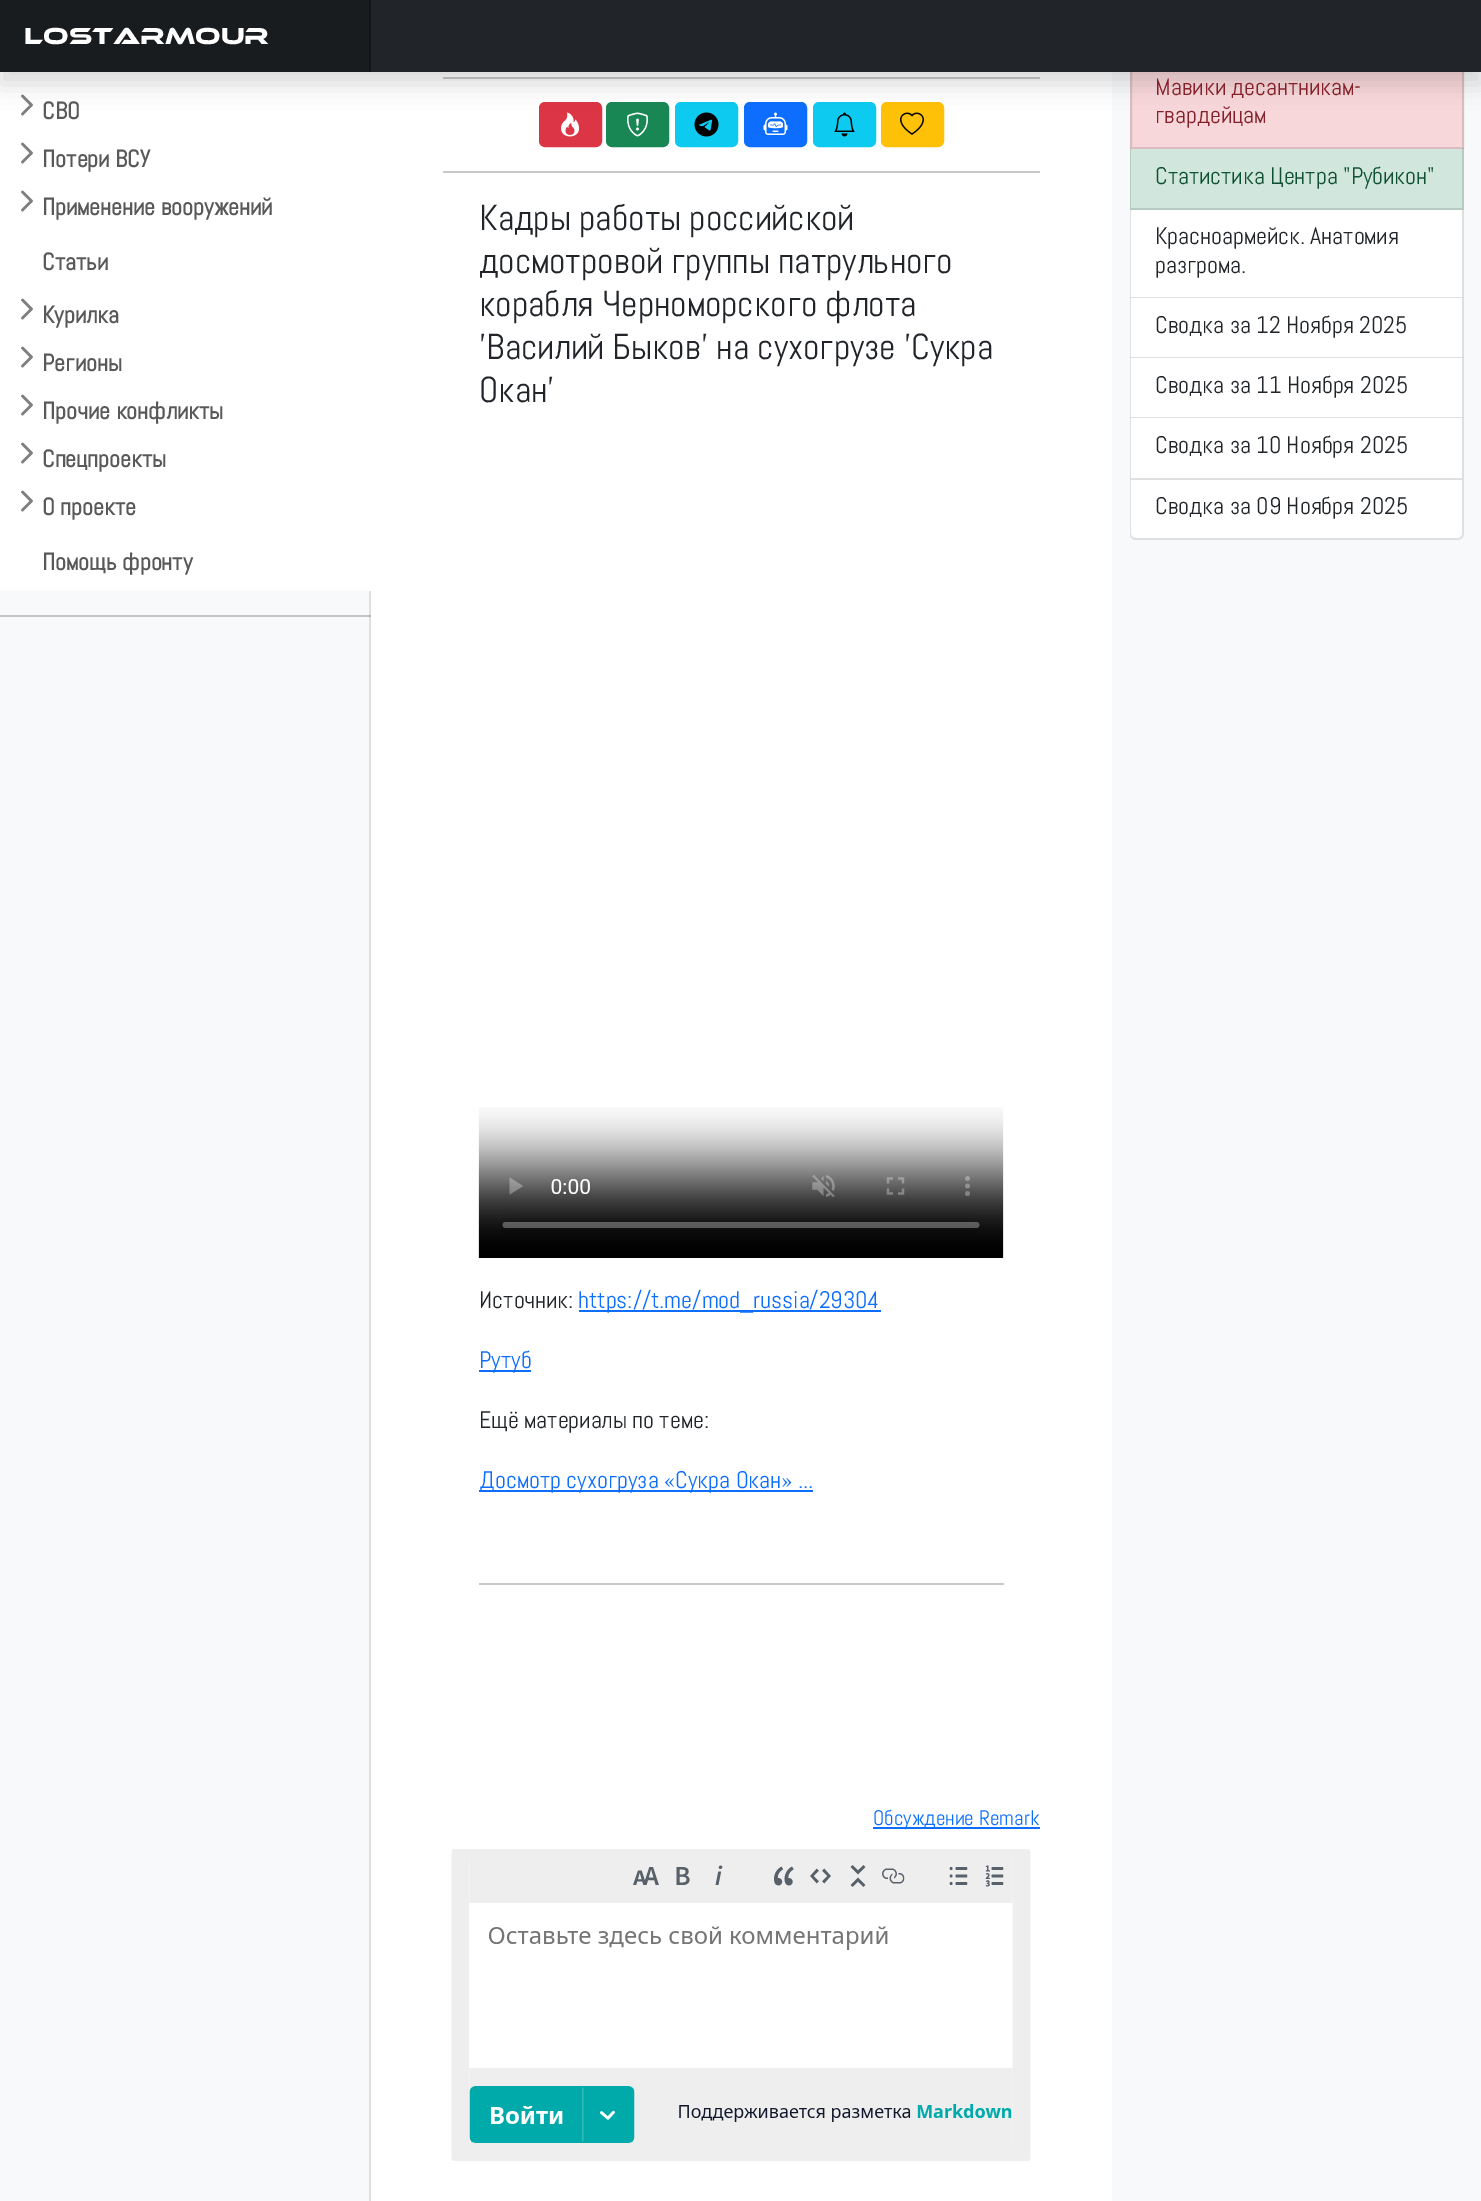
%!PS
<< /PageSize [1481 2201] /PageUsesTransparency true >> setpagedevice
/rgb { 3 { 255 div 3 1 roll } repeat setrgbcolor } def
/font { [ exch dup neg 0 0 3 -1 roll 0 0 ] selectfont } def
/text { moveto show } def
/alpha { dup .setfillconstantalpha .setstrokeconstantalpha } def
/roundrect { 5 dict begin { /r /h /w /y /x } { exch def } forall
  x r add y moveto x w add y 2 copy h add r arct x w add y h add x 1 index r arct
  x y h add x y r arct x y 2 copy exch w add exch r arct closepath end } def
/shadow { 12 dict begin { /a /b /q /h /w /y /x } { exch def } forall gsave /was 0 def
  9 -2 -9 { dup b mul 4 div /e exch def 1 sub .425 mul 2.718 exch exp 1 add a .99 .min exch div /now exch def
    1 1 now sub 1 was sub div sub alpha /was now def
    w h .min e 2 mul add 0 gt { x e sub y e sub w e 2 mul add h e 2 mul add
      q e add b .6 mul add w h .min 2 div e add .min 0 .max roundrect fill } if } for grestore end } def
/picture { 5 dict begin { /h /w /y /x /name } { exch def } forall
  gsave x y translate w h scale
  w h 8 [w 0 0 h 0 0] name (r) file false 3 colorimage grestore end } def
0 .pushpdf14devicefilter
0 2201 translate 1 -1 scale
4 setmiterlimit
255 255 255 rgb
0 0 1481 2201 rectfill
(img_01.rgb) 21 94 12 22 picture
200 201 202 rgb
443 77 597 2 rectfill
220 53 69 rgb
540 103 61 43 5 roundrect gsave fill grestore
2 setlinewidth
stroke
(img_02.rgb) 561 112 18 25 picture
25 135 84 rgb
607 103 61 43 5 roundrect gsave fill grestore
stroke
(img_03.rgb) 627 112 21 25 picture
13 202 240 rgb
676 103 61 43 5 roundrect gsave fill grestore
stroke
(img_04.rgb) 694 112 25 25 picture
13 110 253 rgb
745 103 61 43 5 roundrect gsave fill grestore
stroke
(img_05.rgb) 763 112 25 23 picture
13 202 240 rgb
814 103 61 43 5 roundrect gsave fill grestore
stroke
(img_06.rgb) 834 112 21 25 picture
255 193 7 rgb
882 103 61 43 5 roundrect gsave fill grestore
stroke
(img_07.rgb) 900 112 24 23 picture
248 249 250 rgb
1112 72 369 2129 rectfill
248 215 218 rgb
1130 72 334 77 rectfill
0.12 alpha
0 0 0 rgb
1131 60 332 88 rectstroke
1 alpha
0 12 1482 72 0 12 0.15 shadow
33 37 41 rgb
371 0 1110 72 rectfill
25 28 31 rgb
0 0 369 72 rectfill
19 21 23 rgb
369 0 2 72 rectfill
248 249 250 rgb
0 591 369 1610 rectfill
194 196 198 rgb
0 615 371 2 rectfill
223 224 225 rgb
369 591 2 1610 rectfill
176 177 179 rgb
369 615 2 2 rectfill
(img_01.rgb) 21 142 12 22 picture
(img_01.rgb) 21 190 12 22 picture
(img_01.rgb) 21 298 12 22 picture
(img_01.rgb) 21 346 12 22 picture
(img_01.rgb) 21 394 12 22 picture
(img_01.rgb) 21 442 12 22 picture
(img_01.rgb) 21 490 12 22 picture
200 201 202 rgb
443 171 597 2 rectfill
(img_08.rgb) 478 1107 526 151 picture
13 110 253 rgb
579 1310 302 2 rectfill
479 1370 52 2 rectfill
479 1490 334 2 rectfill
200 201 202 rgb
479 1583 525 2 rectfill
13 110 253 rgb
873 1827 167 2 rectfill
(img_09.rgb) 451 1849 580 312 picture
209 231 221 rgb
1130 149 334 61 rectfill
0.12 alpha
0 0 0 rgb
1464 148 moveto 0 62 rlineto -2 -2 rlineto 0 -60 rlineto closepath fill
1464 210 moveto -334 0 rlineto 1 -2 rlineto 331 0 rlineto closepath fill
1130 210 moveto 0 -62 rlineto 1 0 rlineto 0 60 rlineto closepath fill
1 alpha
255 255 255 rgb
1130 210 334 270 rectfill
223 223 223 rgb
1464 210 moveto 0 88 rlineto -2 -1 rlineto 0 -87 rlineto closepath fill
0.12 alpha
0 0 0 rgb
1464 298 moveto -334 0 rlineto 1 -1 rlineto 331 0 rlineto closepath fill
1130 298 moveto 0 -88 rlineto 1 0 rlineto 0 87 rlineto closepath fill
1 alpha
223 223 223 rgb
1464 298 moveto 0 60 rlineto -2 -1 rlineto 0 -59 rlineto closepath fill
0.12 alpha
0 0 0 rgb
1464 358 moveto -334 0 rlineto 1 -1 rlineto 331 0 rlineto closepath fill
1130 358 moveto 0 -60 rlineto 1 0 rlineto 0 59 rlineto closepath fill
1 alpha
223 223 223 rgb
1464 358 moveto 0 60 rlineto -2 -1 rlineto 0 -59 rlineto closepath fill
0.12 alpha
0 0 0 rgb
1464 418 moveto -334 0 rlineto 1 -1 rlineto 331 0 rlineto closepath fill
1130 418 moveto 0 -60 rlineto 1 0 rlineto 0 59 rlineto closepath fill
1 alpha
223 223 223 rgb
1464 418 moveto 0 62 rlineto -2 -2 rlineto 0 -60 rlineto closepath fill
0.12 alpha
0 0 0 rgb
1464 480 moveto -334 0 rlineto 1 -2 rlineto 331 0 rlineto closepath fill
1130 480 moveto 0 -62 rlineto 1 0 rlineto 0 60 rlineto closepath fill
1 alpha
255 255 255 rgb
1130 480 moveto 334 0 rlineto 0 54 rlineto 0 3.5 -2.5 6 -6 6 rcurveto -322 0 rlineto -3.5 0 -6 -2.5 -6 -6 rcurveto closepath fill
0.12 alpha
0 0 0 rgb
1130 480 moveto 334 0 rlineto 0 54 rlineto 0 3 -3 6 -6 6 rcurveto -322 0 rlineto -4 0 -6 -3 -6 -6 rcurveto closepath 1131 480 moveto 331 0 rlineto 0 54 rlineto 0 2 -2 4 -4 4 rcurveto -322 0 rlineto -3 0 -5 -2 -5 -4 rcurveto closepath eofill
/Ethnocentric-Regular 24 font
1 alpha
255 255 255 rgb
(LOSTARMOUR) 24 44 text
/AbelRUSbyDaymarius-Bold 24 font
89 89 89 rgb
(СВО) 42 119 text
(Потери ВСУ) 42 167 text
(Применение вооружений) 42 215 text
(Статьи) 42 270 text
(Курилка) 42 323 text
(Регионы) 42 371 text
(Прочие конфликты) 42 419 text
(Спецпроекты) 42 467 text
(О проекте) 42 515 text
(Помощь фронту) 42 570 text
/AbelRUSbyDaymarius-Regular 36 font
33 37 41 rgb
(Кадры работы российской) 479 230 text
(досмотровой группы патрульного) 479 273 text
(корабля Черноморского флота) 479 316 text
('Василий Быков' на сухогрузе 'Сукра) 479 359 text
(Окан') 479 402 text
/AbelRUSbyDaymarius-Regular 24 font
(Источник:) 479 1308 text
13 110 253 rgb
(https://t.me/mod_russia/29304) 578 1308 text
(Рутуб) 479 1368 text
33 37 41 rgb
(Ещё материалы по теме:) 479 1428 text
13 110 253 rgb
(Досмотр сухогруза «Сукра Окан» ...) 479 1488 text
/AbelRUSbyDaymarius-Regular 21 font
(Обсуждение Remark) 873 1825 text
/AbelRUSbyDaymarius-Regular 24 font
132 32 41 rgb
(Мавики десантникам-) 1155 95 text
(гвардейцам) 1155 123 text
15 81 50 rgb
(Статистика Центра "Рубикон") 1155 184 text
33 37 41 rgb
(Красноармейск. Анатомия) 1155 244 text
(разгрома.) 1155 273 text
(Сводка за 12 Ноября 2025) 1155 333 text
(Сводка за 11 Ноября 2025) 1155 393 text
(Сводка за 10 Ноября 2025) 1155 453 text
(Сводка за 09 Ноября 2025) 1155 514 text
.poppdf14devicefilter showpage
